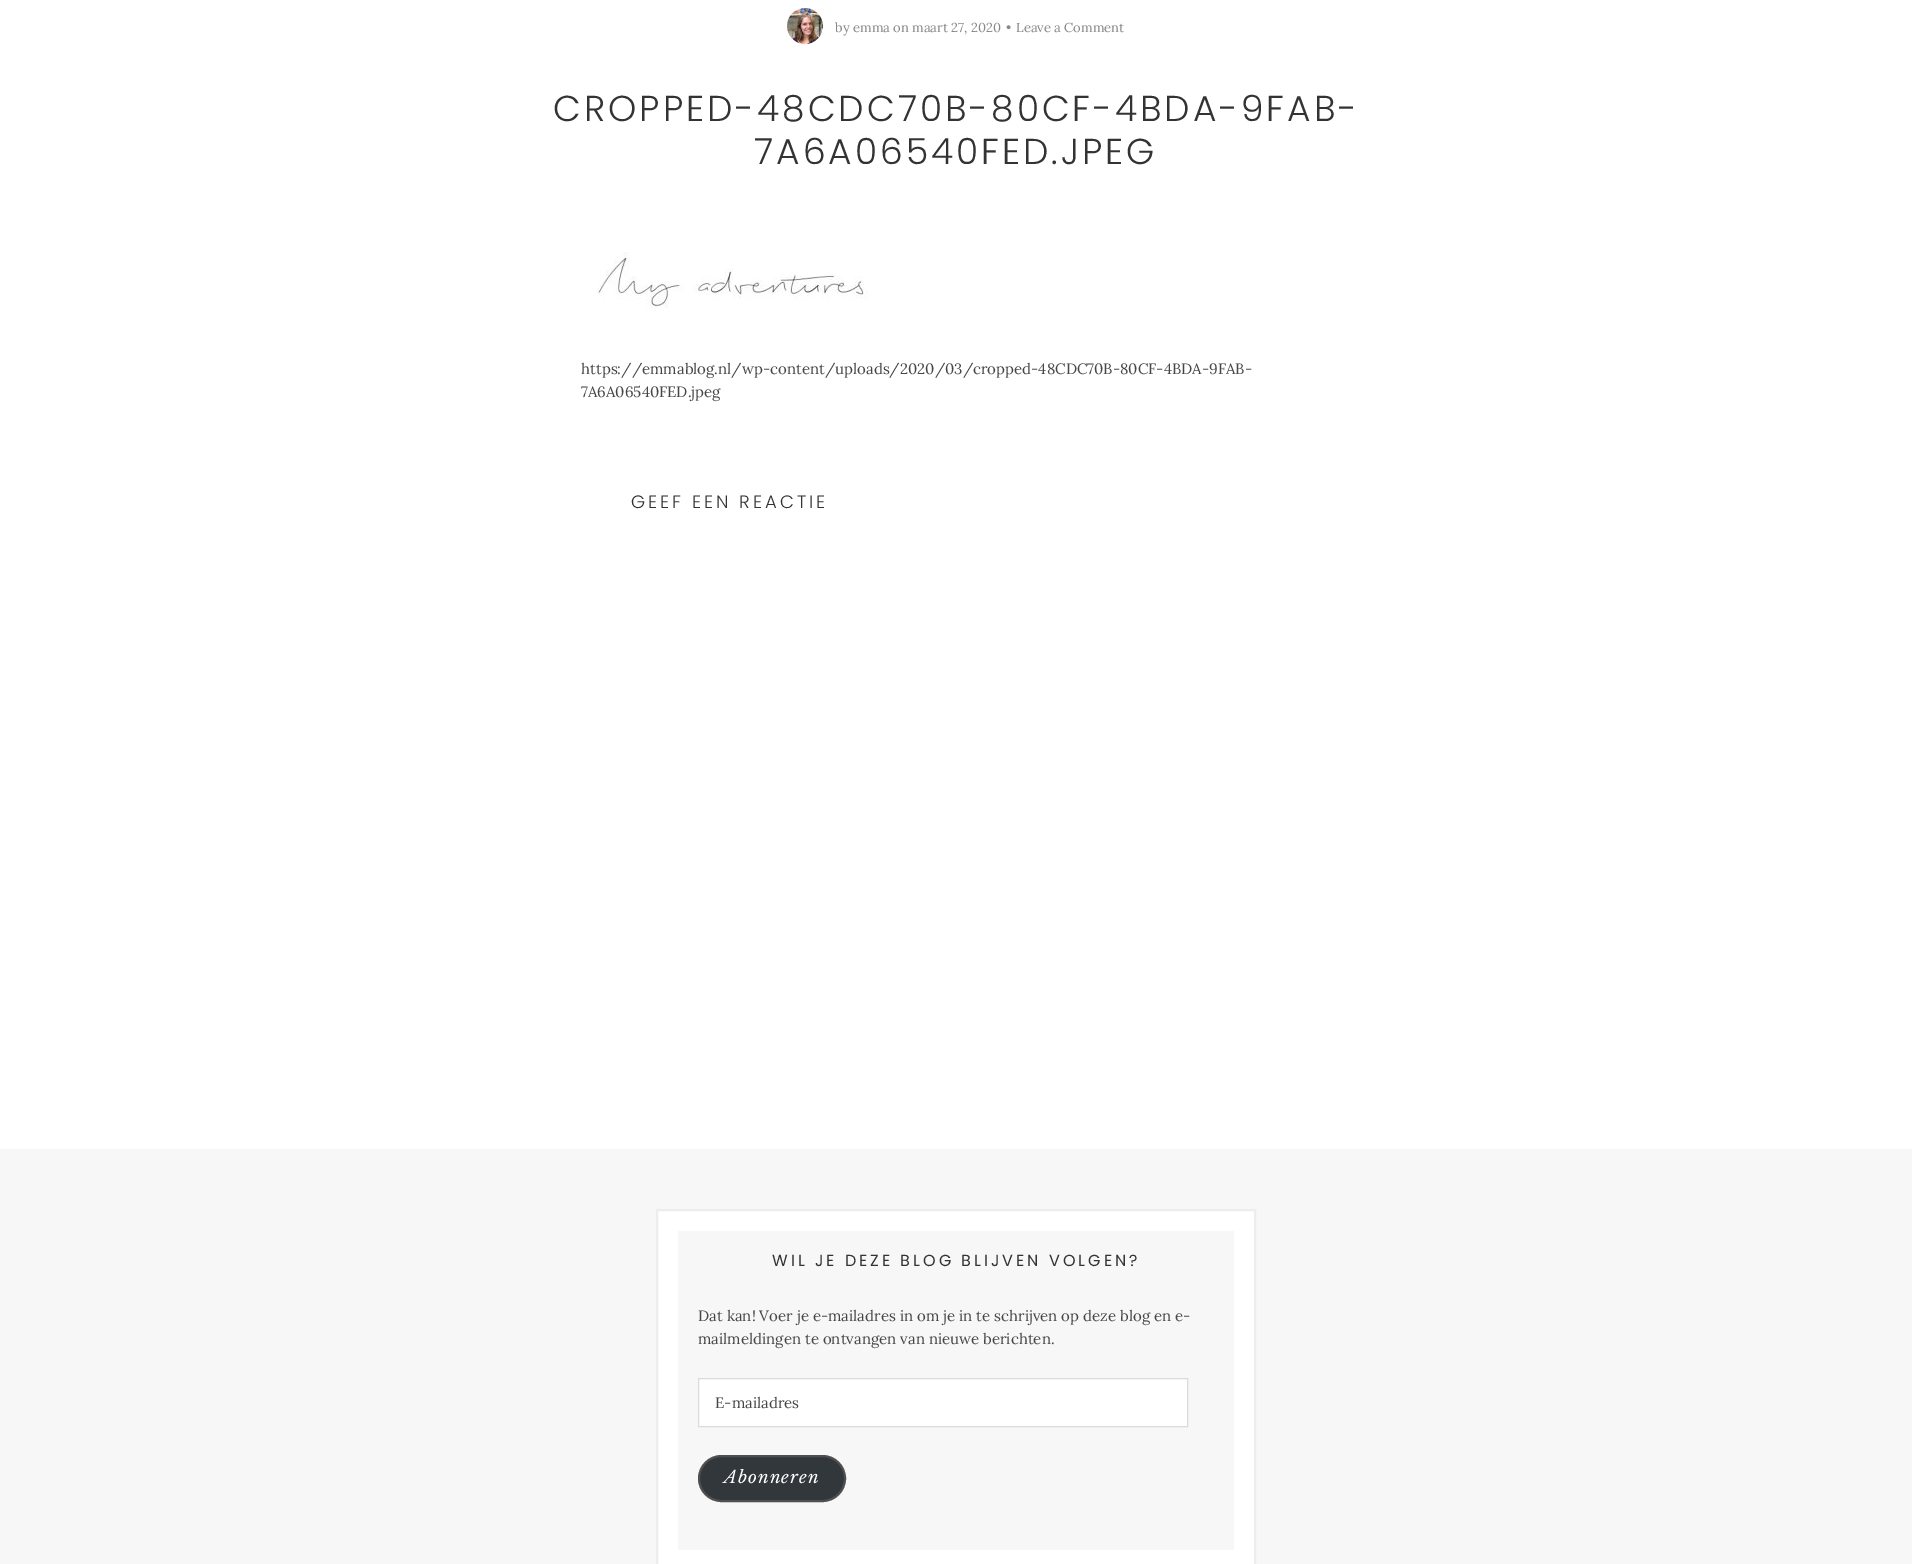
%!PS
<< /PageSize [1912 1564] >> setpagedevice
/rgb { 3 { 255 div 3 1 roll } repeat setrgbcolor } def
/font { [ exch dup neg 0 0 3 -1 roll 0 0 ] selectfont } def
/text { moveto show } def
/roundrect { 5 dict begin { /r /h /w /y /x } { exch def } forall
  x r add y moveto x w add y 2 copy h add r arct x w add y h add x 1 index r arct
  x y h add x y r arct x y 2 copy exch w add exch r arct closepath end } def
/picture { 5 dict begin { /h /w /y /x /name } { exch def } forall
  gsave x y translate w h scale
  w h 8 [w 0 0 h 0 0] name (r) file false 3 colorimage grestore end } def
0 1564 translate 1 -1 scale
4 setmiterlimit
255 255 255 rgb
0 0 1912 1564 rectfill
(img_01.rgb) 787 8 36 36 picture
(img_02.rgb) 598 252 271 56 picture
247 247 247 rgb
0 1149 1912 415 rectfill
255 255 255 rgb
657 1210 moveto 598 0 rlineto 0 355 rlineto -598 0 rlineto closepath gsave fill grestore
237 236 238 rgb
2 setlinewidth
stroke
247 247 247 rgb
678 1231 556 319 rectfill
255 255 255 rgb
698.5 1378.5 moveto 489 0 rlineto 0 48 rlineto -489 0 rlineto closepath gsave fill grestore
220 218 221 rgb
1 setlinewidth
stroke
50 55 60 rgb
699 1456 146 45 22.5 roundrect gsave fill grestore
79 79 79 rgb
2 setlinewidth
stroke
/Lora-Regular 13 font
136 136 136 rgb
(by emma on maart 27, 2020) 835 32 text
(•) 1006 32 text
(Leave a Comment) 1016 32 text
/Poppins-Light 36 font
51 51 51 rgb
553 121 moveto 3 0 (CROPPED-48CDC70B-80CF-4BDA-9FAB-) ashow
754 164 moveto 3 0 (7A6A06540FED.JPEG) ashow
/Lora-Regular 15 font
70 70 70 rgb
(https://emmablog.nl/wp-content/uploads/2020/03/cropped-48CDC70B-80CF-4BDA-9FAB-) 581 374 text
(7A6A06540FED.jpeg) 581 397 text
/Poppins-Light 18 font
51 51 51 rgb
631 508 moveto 3 0 (GEEF EEN REACTIE) ashow
/Poppins-Regular 16 font
772 1266 moveto 3 0 (WIL JE DEZE BLOG BLIJVEN VOLGEN?) ashow
/Lora-Regular 15 font
70 70 70 rgb
(Dat kan! Voer je e-mailadres in om je in te schrijven op deze blog en e-) 698 1321 text
(mailmeldingen te ontvangen van nieuwe berichten.) 698 1344 text
(E-mailadres) 715 1408 text
/LibreBaskerville-Italic 17 font
255 255 255 rgb
724 1483 moveto 1 0 (Abonneren) ashow
showpage
